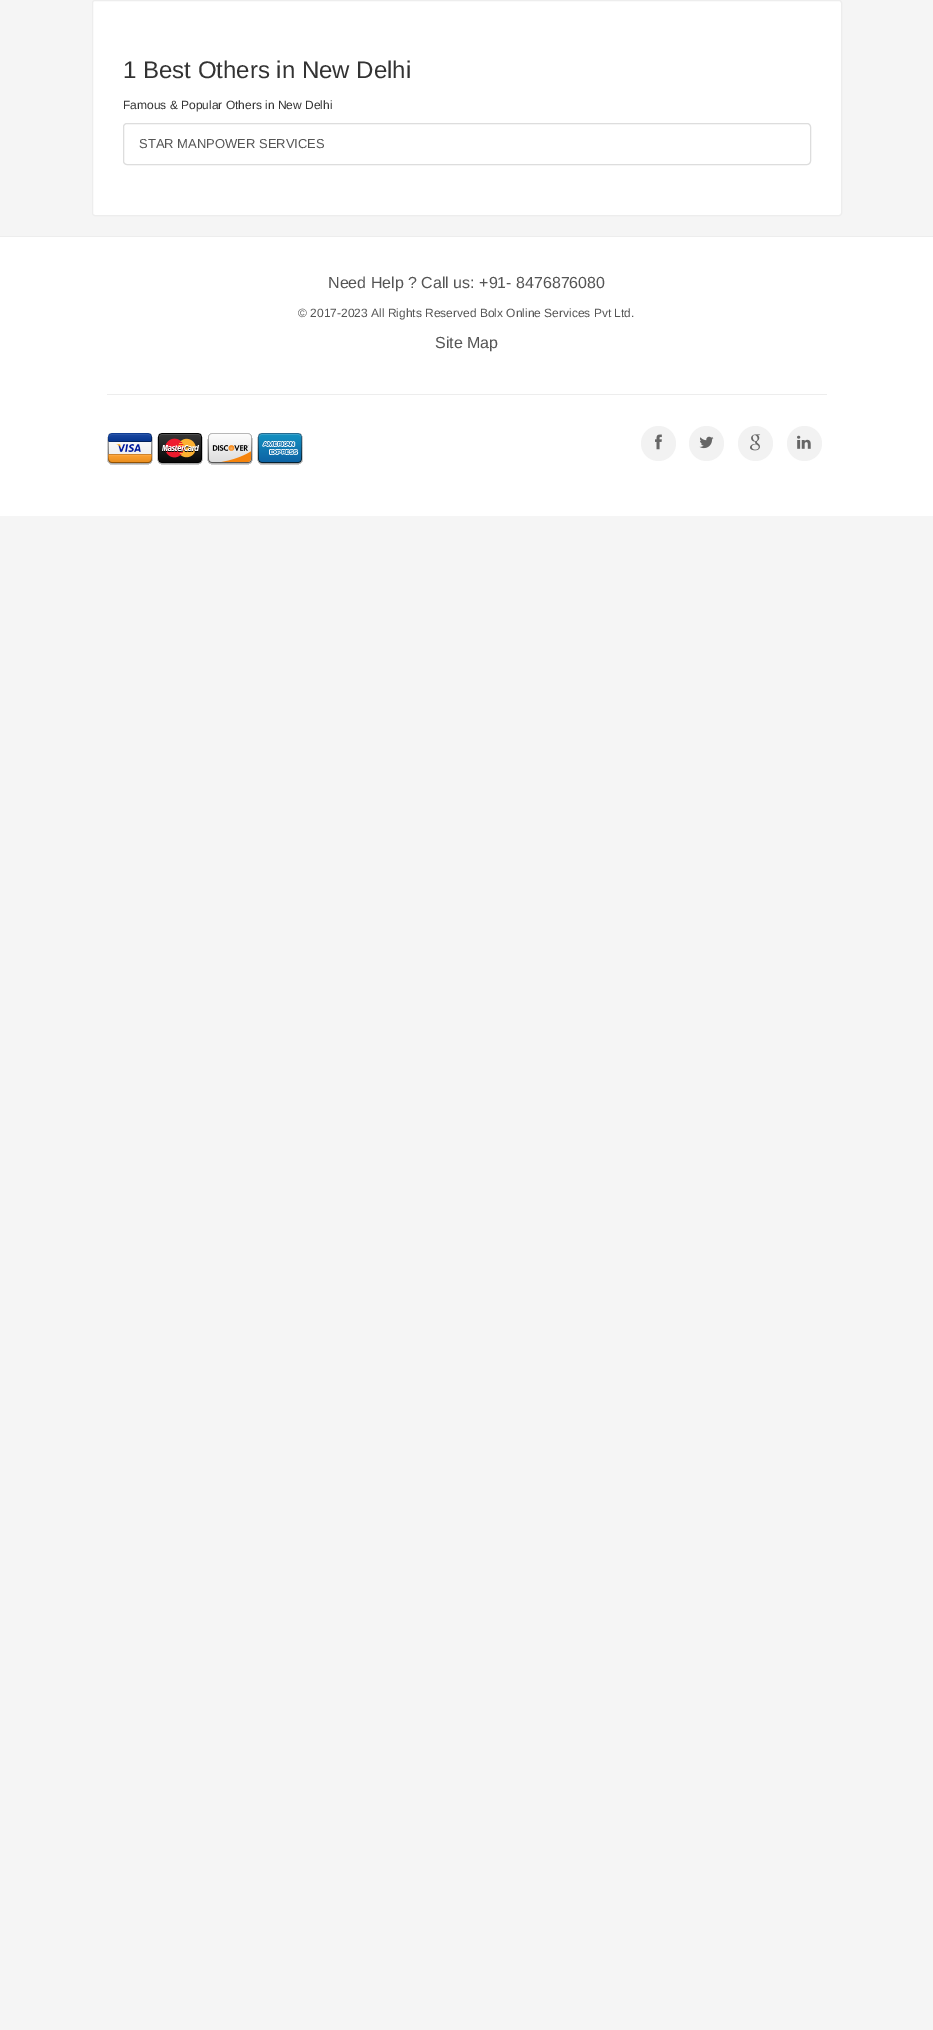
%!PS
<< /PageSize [933 2030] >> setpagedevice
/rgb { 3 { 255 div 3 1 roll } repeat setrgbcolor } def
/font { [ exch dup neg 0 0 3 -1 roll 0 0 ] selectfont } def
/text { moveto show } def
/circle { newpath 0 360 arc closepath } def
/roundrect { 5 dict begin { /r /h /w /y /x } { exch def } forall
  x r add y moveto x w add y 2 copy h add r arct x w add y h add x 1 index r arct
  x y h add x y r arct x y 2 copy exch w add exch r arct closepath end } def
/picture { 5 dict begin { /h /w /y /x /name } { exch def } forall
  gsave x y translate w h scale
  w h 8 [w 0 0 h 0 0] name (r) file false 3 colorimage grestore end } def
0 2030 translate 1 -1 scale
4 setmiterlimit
245 245 245 rgb
0 0 933 2030 rectfill
255 255 255 rgb
92.5 0.5 749 215 2.5 roundrect gsave fill grestore
237 237 237 rgb
stroke
221 221 221 rgb
123.5 123.5 687 41 3.5 roundrect stroke
255 255 255 rgb
0 237 933 279 rectfill
237 237 237 rgb
0 236 933 1 rectfill
107 394 720 1 rectfill
(img_01.rgb) 107 433 196 32 picture
242 242 242 rgb
658.5 443.5 17.5 circle fill
(img_02.rgb) 655 434 7 16 picture
706.5 443.5 17.5 circle fill
(img_03.rgb) 699 436 15 13 picture
755.5 443.5 17.5 circle fill
(img_04.rgb) 750 434 11 17 picture
804.5 443.5 17.5 circle fill
(img_05.rgb) 797 435 14 14 picture
/LiberationSans-Regular 24 font
51 51 51 rgb
(1 Best Others in New Delhi) 123 78 text
/LiberationSans-Regular 12 font
(Famous & Popular Others in New Delhi) 123 109 text
/LiberationSans-Regular 13 font
85 85 85 rgb
(STAR MANPOWER SERVICES) 139 148 text
/LiberationSans-Regular 16 font
(Need Help ? Call us: +91- 8476876080) 328 288 text
/LiberationSans-Regular 12 font
(© 2017-2023 All Rights Reserved Bolx Online Services Pvt Ltd.) 298 317 text
/LiberationSans-Regular 16 font
(Site Map) 435 348 text
showpage
